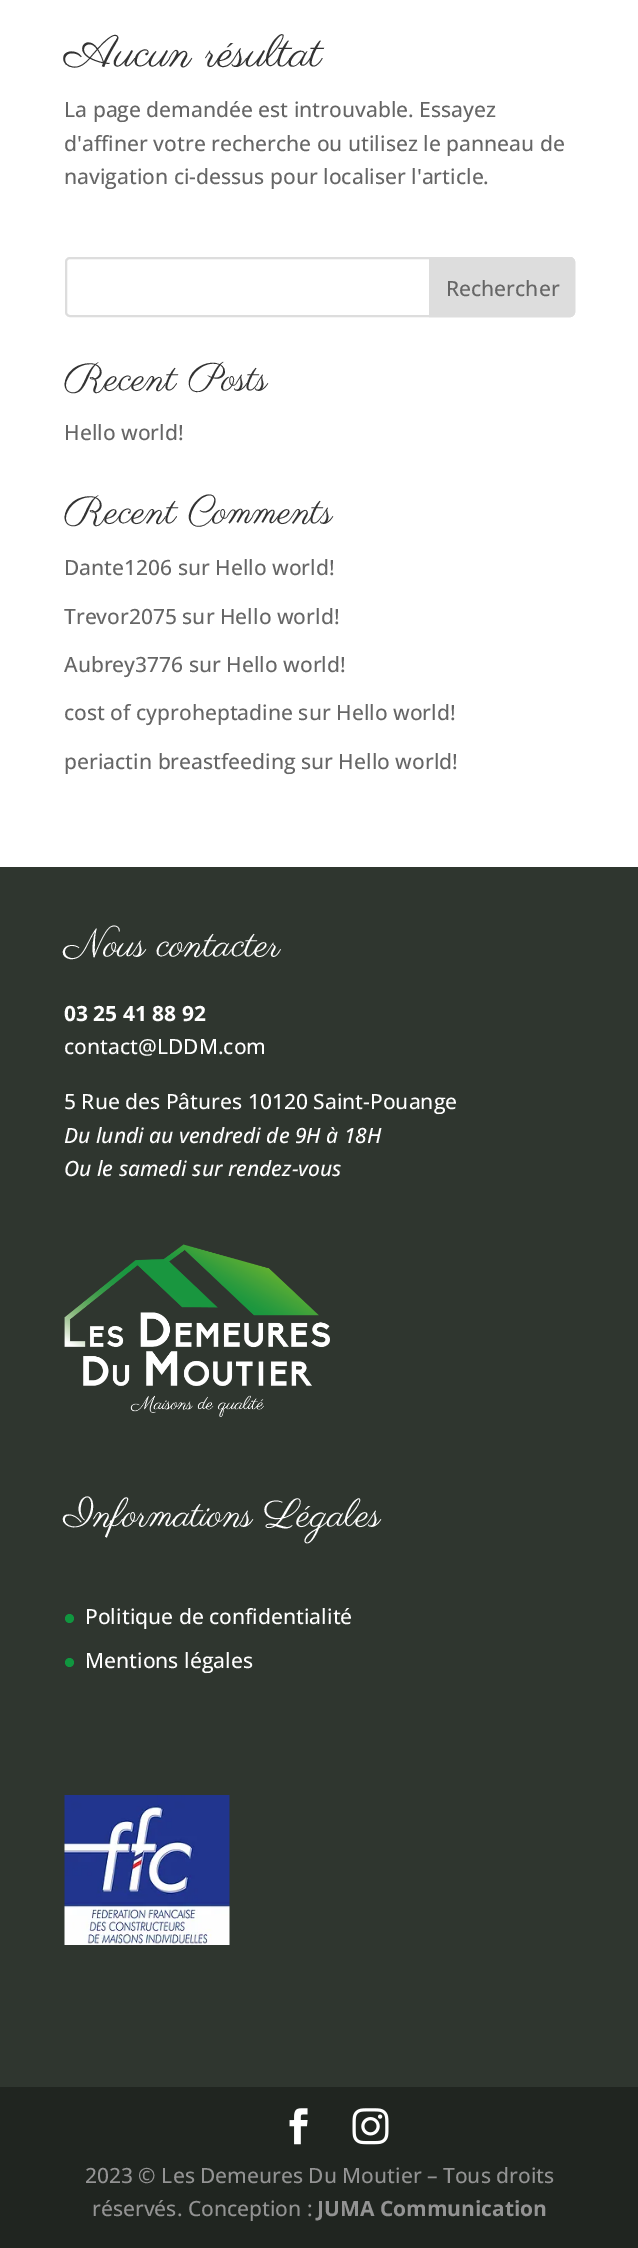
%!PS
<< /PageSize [638 2248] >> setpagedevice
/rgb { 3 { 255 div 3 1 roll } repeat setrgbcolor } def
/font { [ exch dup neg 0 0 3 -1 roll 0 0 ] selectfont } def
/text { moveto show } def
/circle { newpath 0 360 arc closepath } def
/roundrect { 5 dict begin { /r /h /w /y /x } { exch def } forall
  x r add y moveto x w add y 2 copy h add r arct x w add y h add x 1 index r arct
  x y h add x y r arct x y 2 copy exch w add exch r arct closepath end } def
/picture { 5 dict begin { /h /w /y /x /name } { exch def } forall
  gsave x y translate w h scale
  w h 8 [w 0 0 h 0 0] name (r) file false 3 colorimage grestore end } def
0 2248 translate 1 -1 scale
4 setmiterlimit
255 255 255 rgb
0 0 638 2248 rectfill
221 221 221 rgb
2 setlinewidth
66 258 508 58 4 roundrect stroke
430 258 moveto 140 0 rlineto 2 0 4 2 4 4 rcurveto 0 50 rlineto 0 2 -2 4 -4 4 rcurveto -140 0 rlineto closepath gsave fill grestore
stroke
47 54 47 rgb
0 867 638 1220 rectfill
(img_01.rgb) 64 1244 266 173 picture
16 150 63 rgb
69.5 1618.5 4.5 circle fill
69.5 1662.5 4.5 circle fill
(img_02.rgb) 64 1795 166 150 picture
32 37 32 rgb
0 2087 638 161 rectfill
(img_03.rgb) 289 2108 19 37 picture
(img_04.rgb) 352 2108 37 37 picture
/Parisienne-Regular 45 font
51 51 51 rgb
(Aucun résultat) 64 66 text
/OpenSans-Medium 21 font
102 102 102 rgb
(La page demandée est introuvable. Essayez) 64 117 text
(d'affiner votre recherche ou utilisez le panneau de) 64 151 text
(navigation ci-dessus pour localiser l'article.) 64 184 text
(Rechercher) 446 296 text
/Parisienne-Regular 39 font
51 51 51 rgb
(Recent Posts) 64 390 text
/OpenSans-Medium 21 font
102 102 102 rgb
(Hello world!) 64 440 text
/Parisienne-Regular 39 font
51 51 51 rgb
(Recent Comments) 64 523 text
/OpenSans-Medium 21 font
102 102 102 rgb
(Dante1206 sur Hello world!) 64 575 text
(Trevor2075 sur Hello world!) 64 624 text
(Aubrey3776 sur Hello world!) 64 672 text
(cost of cyproheptadine sur Hello world!) 64 720 text
(periactin breastfeeding sur Hello world!) 64 769 text
/Parisienne-Regular 39 font
255 255 255 rgb
(Nous contacter) 64 956 text
/OpenSans-Bold 21 font
(03 25 41 88 92) 64 1021 text
/OpenSans-Medium 21 font
(contact@LDDM.com) 64 1054 text
(5 Rue des Pâtures 10120 Saint-Pouange) 64 1109 text
/OpenSans-MediumItalic 21 font
(Du lundi au vendredi de 9H à 18H) 64 1143 text
(Ou le samedi sur rendez-vous) 64 1176 text
/Parisienne-Regular 39 font
(Informations Légales) 64 1526 text
/OpenSans-Medium 21 font
(Politique de confidentialité) 85 1624 text
(Mentions légales) 85 1668 text
147 147 147 rgb
(2023 © Les Demeures Du Moutier – Tous droits) 85 2183 text
(réservés. Conception :) 92 2216 text
/OpenSans-Bold 21 font
(JUMA Communication) 317 2216 text
showpage
